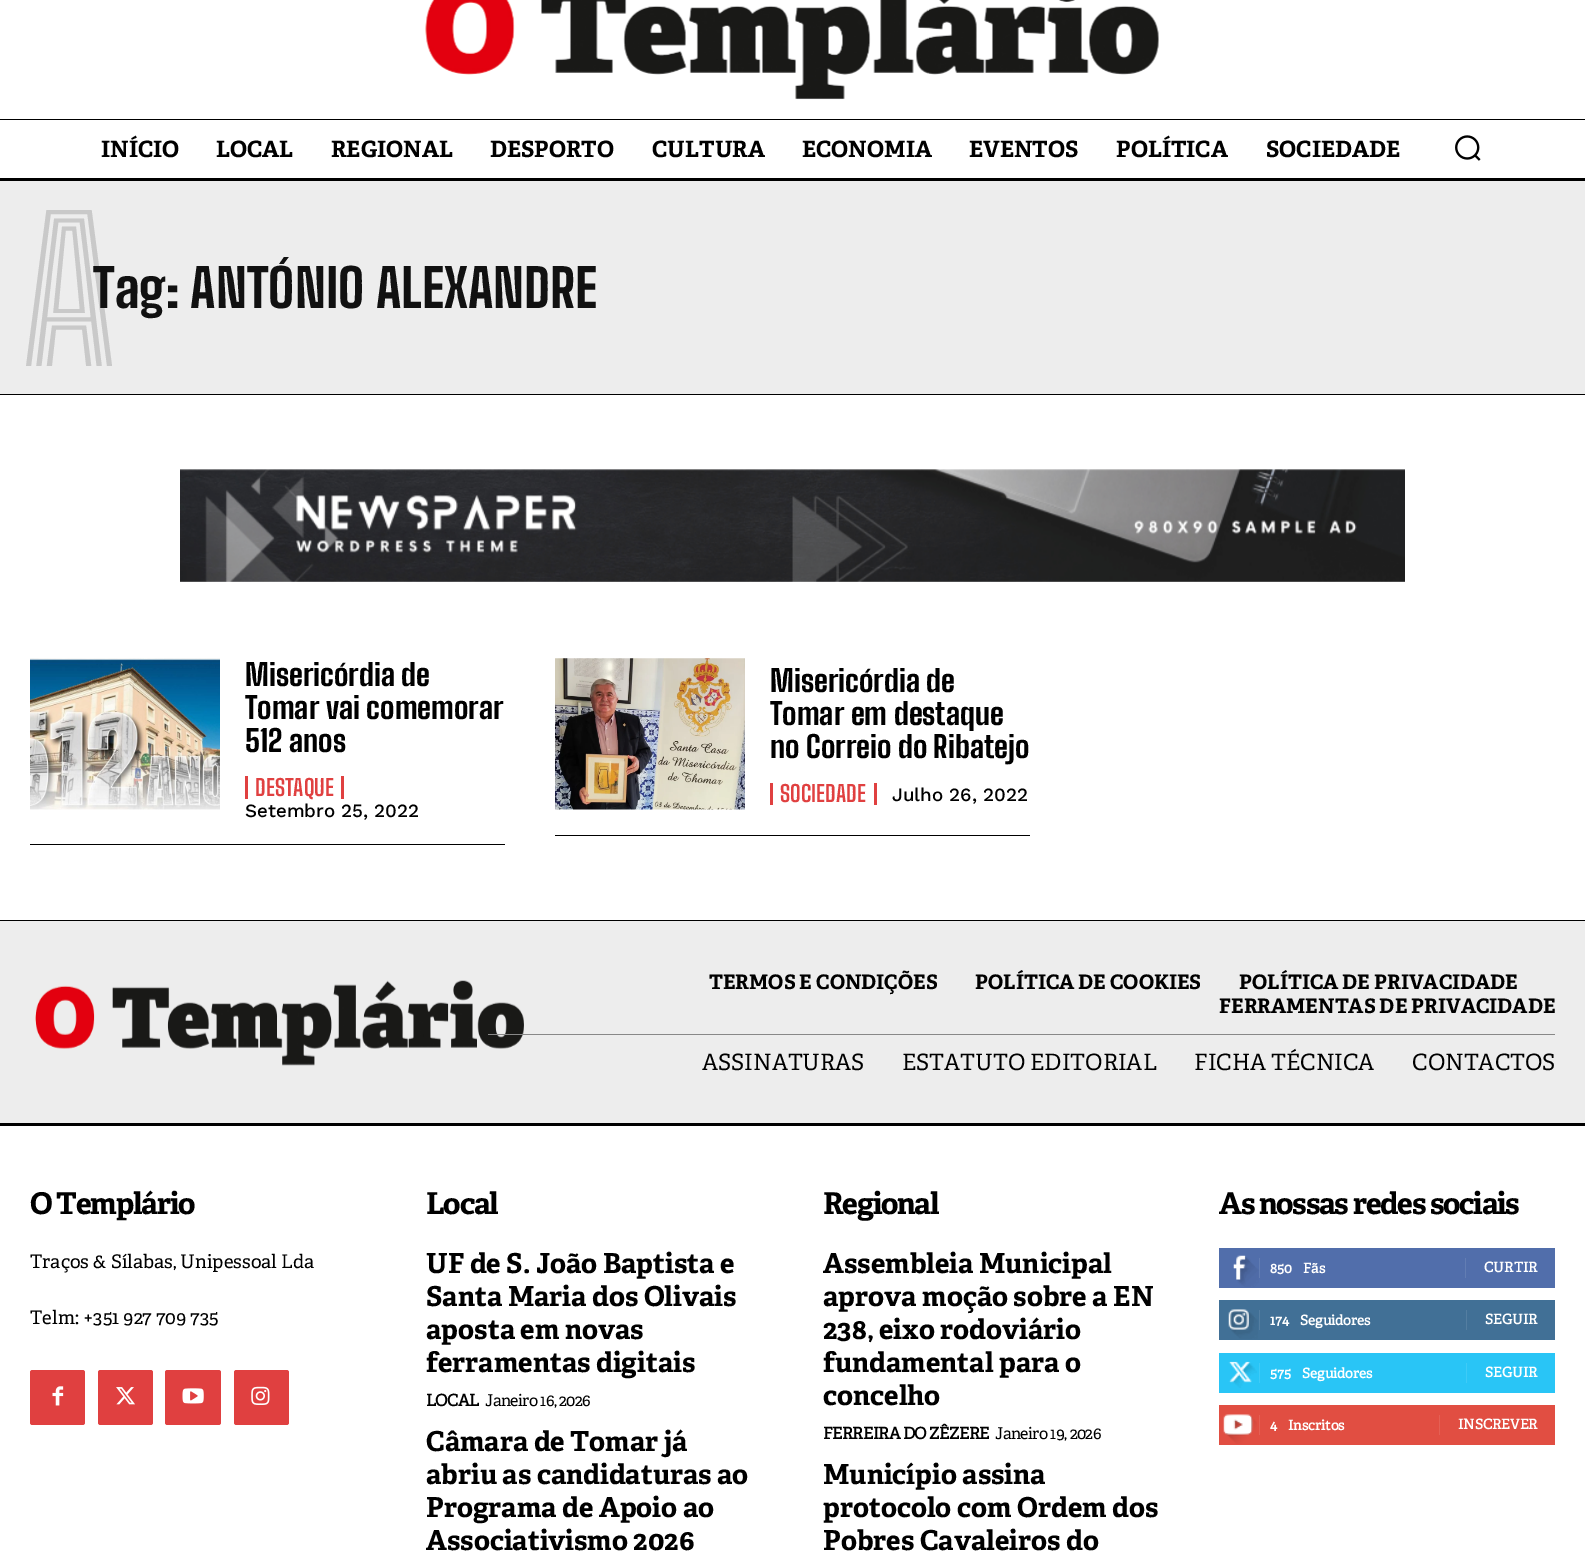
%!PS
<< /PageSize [1585 1553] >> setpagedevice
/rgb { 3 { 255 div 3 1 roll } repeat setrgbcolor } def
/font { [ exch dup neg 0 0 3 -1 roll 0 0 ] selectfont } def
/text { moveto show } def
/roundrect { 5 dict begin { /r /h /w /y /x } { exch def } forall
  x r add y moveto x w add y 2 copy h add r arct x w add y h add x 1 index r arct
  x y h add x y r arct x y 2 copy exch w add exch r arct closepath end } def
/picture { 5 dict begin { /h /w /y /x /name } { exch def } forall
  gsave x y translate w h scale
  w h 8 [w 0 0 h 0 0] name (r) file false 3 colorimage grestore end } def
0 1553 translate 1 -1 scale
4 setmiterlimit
255 255 255 rgb
0 0 1585 1553 rectfill
(img_01.rgb) 425 0 734 100 picture
0 0 0 rgb
0 119 1585 1 rectfill
0 178 1585 3 rectfill
(img_02.rgb) 1455 135 26 26 picture
237 237 237 rgb
0 181 1585 213 rectfill
0 0 0 rgb
0 394 1585 1 rectfill
(img_03.rgb) 180 469 1225 113 picture
30 844 475 1 rectfill
(img_04.rgb) 30 658 190 152 picture
224 64 64 rgb
341 776 3 23 rectfill
245 776 3 23 rectfill
0 0 0 rgb
555 835 475 1 rectfill
(img_05.rgb) 555 658 190 152 picture
224 64 64 rgb
874 783 3 22 rectfill
770 783 3 22 rectfill
237 237 237 rgb
0 921 1585 202 rectfill
0 0 0 rgb
0 920 1585 1 rectfill
0 1123 1585 3 rectfill
(img_06.rgb) 35 980 489 86 picture
136 136 136 rgb
488 1034 1067 1 rectfill
224 64 64 rgb
30 1370 55 55 2.5 roundrect fill
(img_07.rgb) 52 1386 12 20 picture
98 1370 55 55 2.5 roundrect fill
(img_08.rgb) 116 1387 19 18 picture
165 1370 56 55 2.5 roundrect fill
(img_09.rgb) 182 1388 22 16 picture
234 1370 55 55 2.5 roundrect fill
(img_10.rgb) 251 1386 19 19 picture
81 110 171 rgb
1219 1248 336 40 rectfill
(img_11.rgb) 1233 1255 26 32 picture
98 125 179 rgb
1259 1258 1 20 rectfill
1465 1258 1 20 rectfill
65 112 150 rgb
1219 1300 336 40 rectfill
(img_12.rgb) 1228 1309 30 30 picture
84 126 161 rgb
1259 1310 1 20 rectfill
1466 1310 1 20 rectfill
41 197 246 rgb
1219 1353 336 40 rectfill
(img_13.rgb) 1228 1361 29 27 picture
62 203 247 rgb
1259 1363 1 20 rectfill
1466 1363 1 20 rectfill
225 78 66 rgb
1219 1405 336 40 rectfill
(img_14.rgb) 1223 1414 34 30 picture
228 96 85 rgb
1259 1415 1 20 rectfill
1439 1415 1 20 rectfill
/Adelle-Bold 22.5 font
0 0 0 rgb
(INÍCIO) 101 157 text
(LOCAL) 216 157 text
(REGIONAL) 331 157 text
(DESPORTO) 490 157 text
(CULTURA) 652 157 text
(ECONOMIA) 802 157 text
(EVENTOS) 969 157 text
(POLÍTICA) 1116 157 text
(SOCIEDADE) 1266 157 text
/BigShouldersInlineText-ExtraBold 195 font
201 201 201 rgb
(A) 22 366 text
/BigShouldersText-ExtraBold 52.5 font
17 17 17 rgb
(Tag: ANTÓNIO ALEXANDRE) 93 308 text
/BigShouldersText-ExtraBold 30 font
0 0 0 rgb
(Misericórdia de) 245 686 text
(Tomar vai comemorar) 245 719 text
(512 anos) 245 752 text
/BigShouldersText-Bold 22.5 font
224 64 64 rgb
(DESTAQUE) 255 796 text
/WorkSans-Medium 18.75 font
0 0 0 rgb
(Setembro 25, 2022) 245 817 text
/BigShouldersText-ExtraBold 30 font
(Misericórdia de) 770 692 text
(Tomar em destaque) 770 725 text
(no Correio do Ribatejo) 770 758 text
/BigShouldersText-Bold 22.5 font
224 64 64 rgb
(SOCIEDADE) 780 802 text
/WorkSans-Medium 18.75 font
0 0 0 rgb
(Julho 26, 2022) 892 801 text
/Adelle-Bold 20 font
(TERMOS E CONDIÇÕES) 709 989 text
(POLÍTICA DE COOKIES) 975 989 text
(POLÍTICA DE PRIVACIDADE) 1239 989 text
(FERRAMENTAS DE PRIVACIDADE) 1219 1013 text
/Adelle-Regular 22.5 font
(ASSINATURAS) 702 1070 text
(ESTATUTO EDITORIAL) 902 1070 text
(FICHA TÉCNICA) 1194 1070 text
(CONTACTOS) 1412 1070 text
/Adelle-Bold 30 font
30 1214 moveto -1.25 0 (O Templário) ashow
/Adelle-Regular 18.75 font
(Traços & Sílabas, Unipessoal Lda) 30 1268 text
(Telm: +351 927 709 735) 30 1324 text
/Adelle-Bold 30 font
426 1214 moveto -1.25 0 (Local) ashow
/Adelle-Bold 27.5 font
(UF de S. João Baptista e) 426 1273 text
(Santa Maria dos Olivais) 426 1306 text
(aposta em novas) 426 1339 text
(ferramentas digitais) 426 1372 text
/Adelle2-Bold 16.25 font
426 1406 moveto -0.6 0 (LOCAL) ashow
/Adelle-Regular 16.25 font
485 1406 moveto -0.6 0 (Janeiro 16, 2026) ashow
/Adelle-Bold 27.5 font
(Câmara de Tomar já) 426 1451 text
(abriu as candidaturas ao) 426 1484 text
(Programa de Apoio ao) 426 1517 text
(Associativismo 2026) 426 1550 text
/Adelle-Bold 30 font
823 1214 moveto -1.25 0 (Regional) ashow
/Adelle-Bold 27.5 font
(Assembleia Municipal) 823 1273 text
(aprova moção sobre a EN) 823 1306 text
(238, eixo rodoviário) 823 1339 text
(fundamental para o) 823 1372 text
(concelho) 823 1405 text
/Adelle2-Bold 16.25 font
823 1439 moveto -0.6 0 (FERREIRA DO ZÊZERE) ashow
/Adelle-Regular 16.25 font
995 1439 moveto -0.6 0 (Janeiro 19, 2026) ashow
/Adelle-Bold 27.5 font
(Município assina) 823 1484 text
(protocolo com Ordem dos) 823 1517 text
(Pobres Cavaleiros do) 823 1550 text
/Adelle-Bold 30 font
1219 1214 moveto -1.25 0 (As nossas redes sociais) ashow
/Adelle2-Bold 13.75 font
255 255 255 rgb
(850) 1270 1273 text
(Fãs) 1303 1273 text
(CURTIR) 1484 1272 text
(174) 1270 1325 text
(Seguidores) 1300 1325 text
(SEGUIR) 1485 1324 text
(575) 1270 1378 text
(Seguidores) 1302 1378 text
(SEGUIR) 1485 1377 text
(4) 1270 1430 text
(Inscritos) 1288 1430 text
(INSCREVER) 1458 1429 text
showpage
